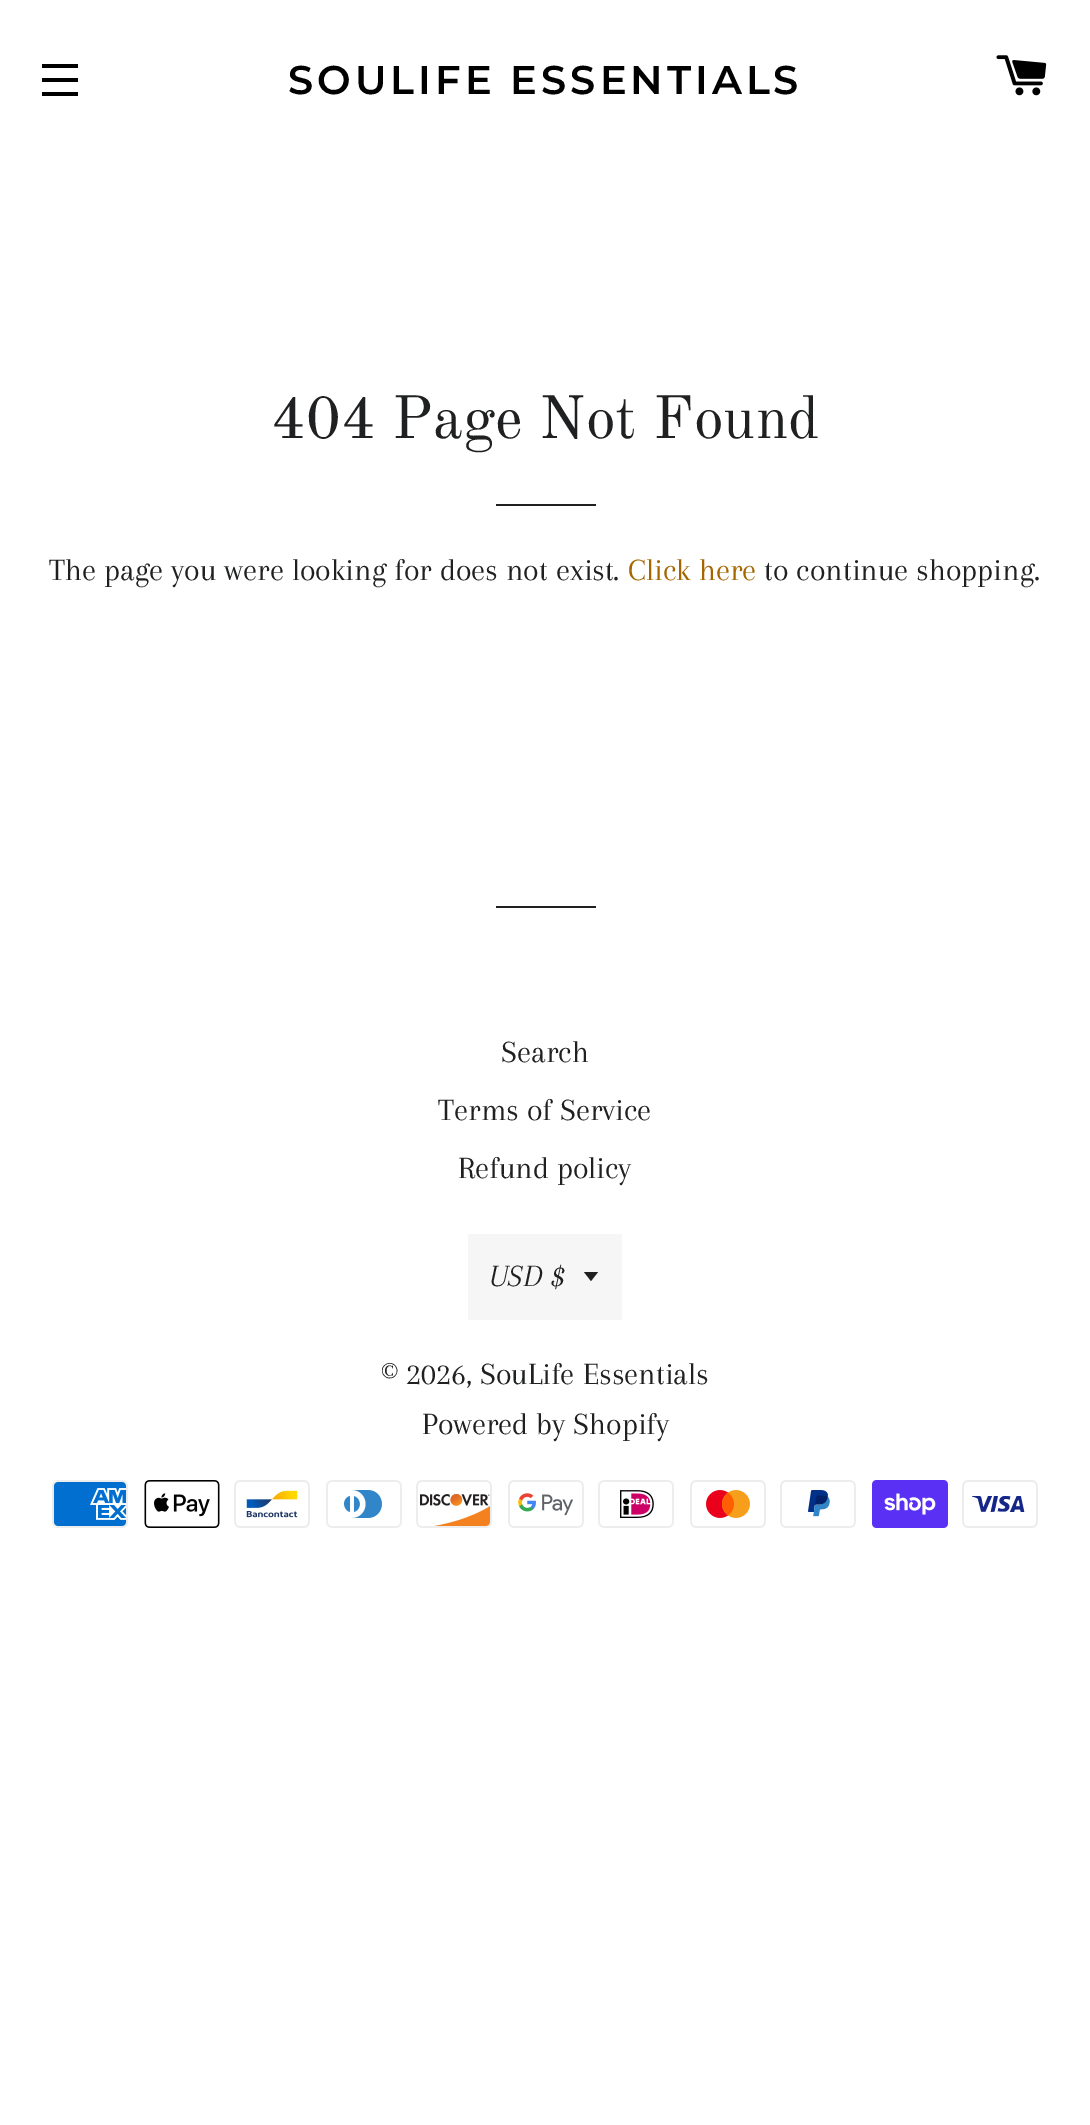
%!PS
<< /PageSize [1090 2125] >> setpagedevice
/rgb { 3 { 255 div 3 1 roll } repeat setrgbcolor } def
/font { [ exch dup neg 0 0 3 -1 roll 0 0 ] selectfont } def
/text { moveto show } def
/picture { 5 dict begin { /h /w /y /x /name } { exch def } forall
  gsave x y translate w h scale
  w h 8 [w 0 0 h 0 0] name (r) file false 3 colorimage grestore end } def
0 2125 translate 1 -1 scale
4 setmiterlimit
255 255 255 rgb
0 0 1090 2125 rectfill
0 0 0 rgb
42 64 36 4 rectfill
42 78 36 4 rectfill
42 92 36 4 rectfill
(img_01.rgb) 996 55 51 41 picture
31 32 33 rgb
496 504 100 2 rectfill
496 906 100 2 rectfill
246 246 246 rgb
468 1234 154 86 rectfill
31 32 33 rgb
584 1272 moveto 7 9 rlineto 7 -9 rlineto closepath fill
(img_02.rgb) 52 1480 76 48 picture
(img_03.rgb) 144 1480 76 48 picture
(img_04.rgb) 234 1480 76 48 picture
(img_05.rgb) 326 1480 76 48 picture
(img_06.rgb) 416 1480 76 48 picture
(img_07.rgb) 508 1480 76 48 picture
(img_08.rgb) 598 1480 76 48 picture
(img_09.rgb) 690 1480 76 48 picture
(img_10.rgb) 780 1480 76 48 picture
(img_11.rgb) 872 1480 76 48 picture
(img_12.rgb) 962 1480 76 48 picture
/Montserrat-SemiBold 40 font
0 0 0 rgb
288 94 moveto 4 0 (SOULIFE ESSENTIALS) ashow
/OldStandardTT-Regular 60 font
31 32 33 rgb
(404 Page Not Found) 271 438 text
/Arapey-Regular 32 font
(The page you were looking for does not exist.) 49 580 text
165 102 0 rgb
(Click here) 628 580 text
31 32 33 rgb
(to continue shopping.) 764 580 text
(Search) 501 1062 text
(Terms of Service) 438 1120 text
(Refund policy) 458 1178 text
/Arapey-Italic 32 font
(USD $) 489 1286 text
/Arapey-Regular 32 font
(© 2026, SouLife Essentials) 381 1384 text
(Powered by Shopify) 422 1434 text
showpage
